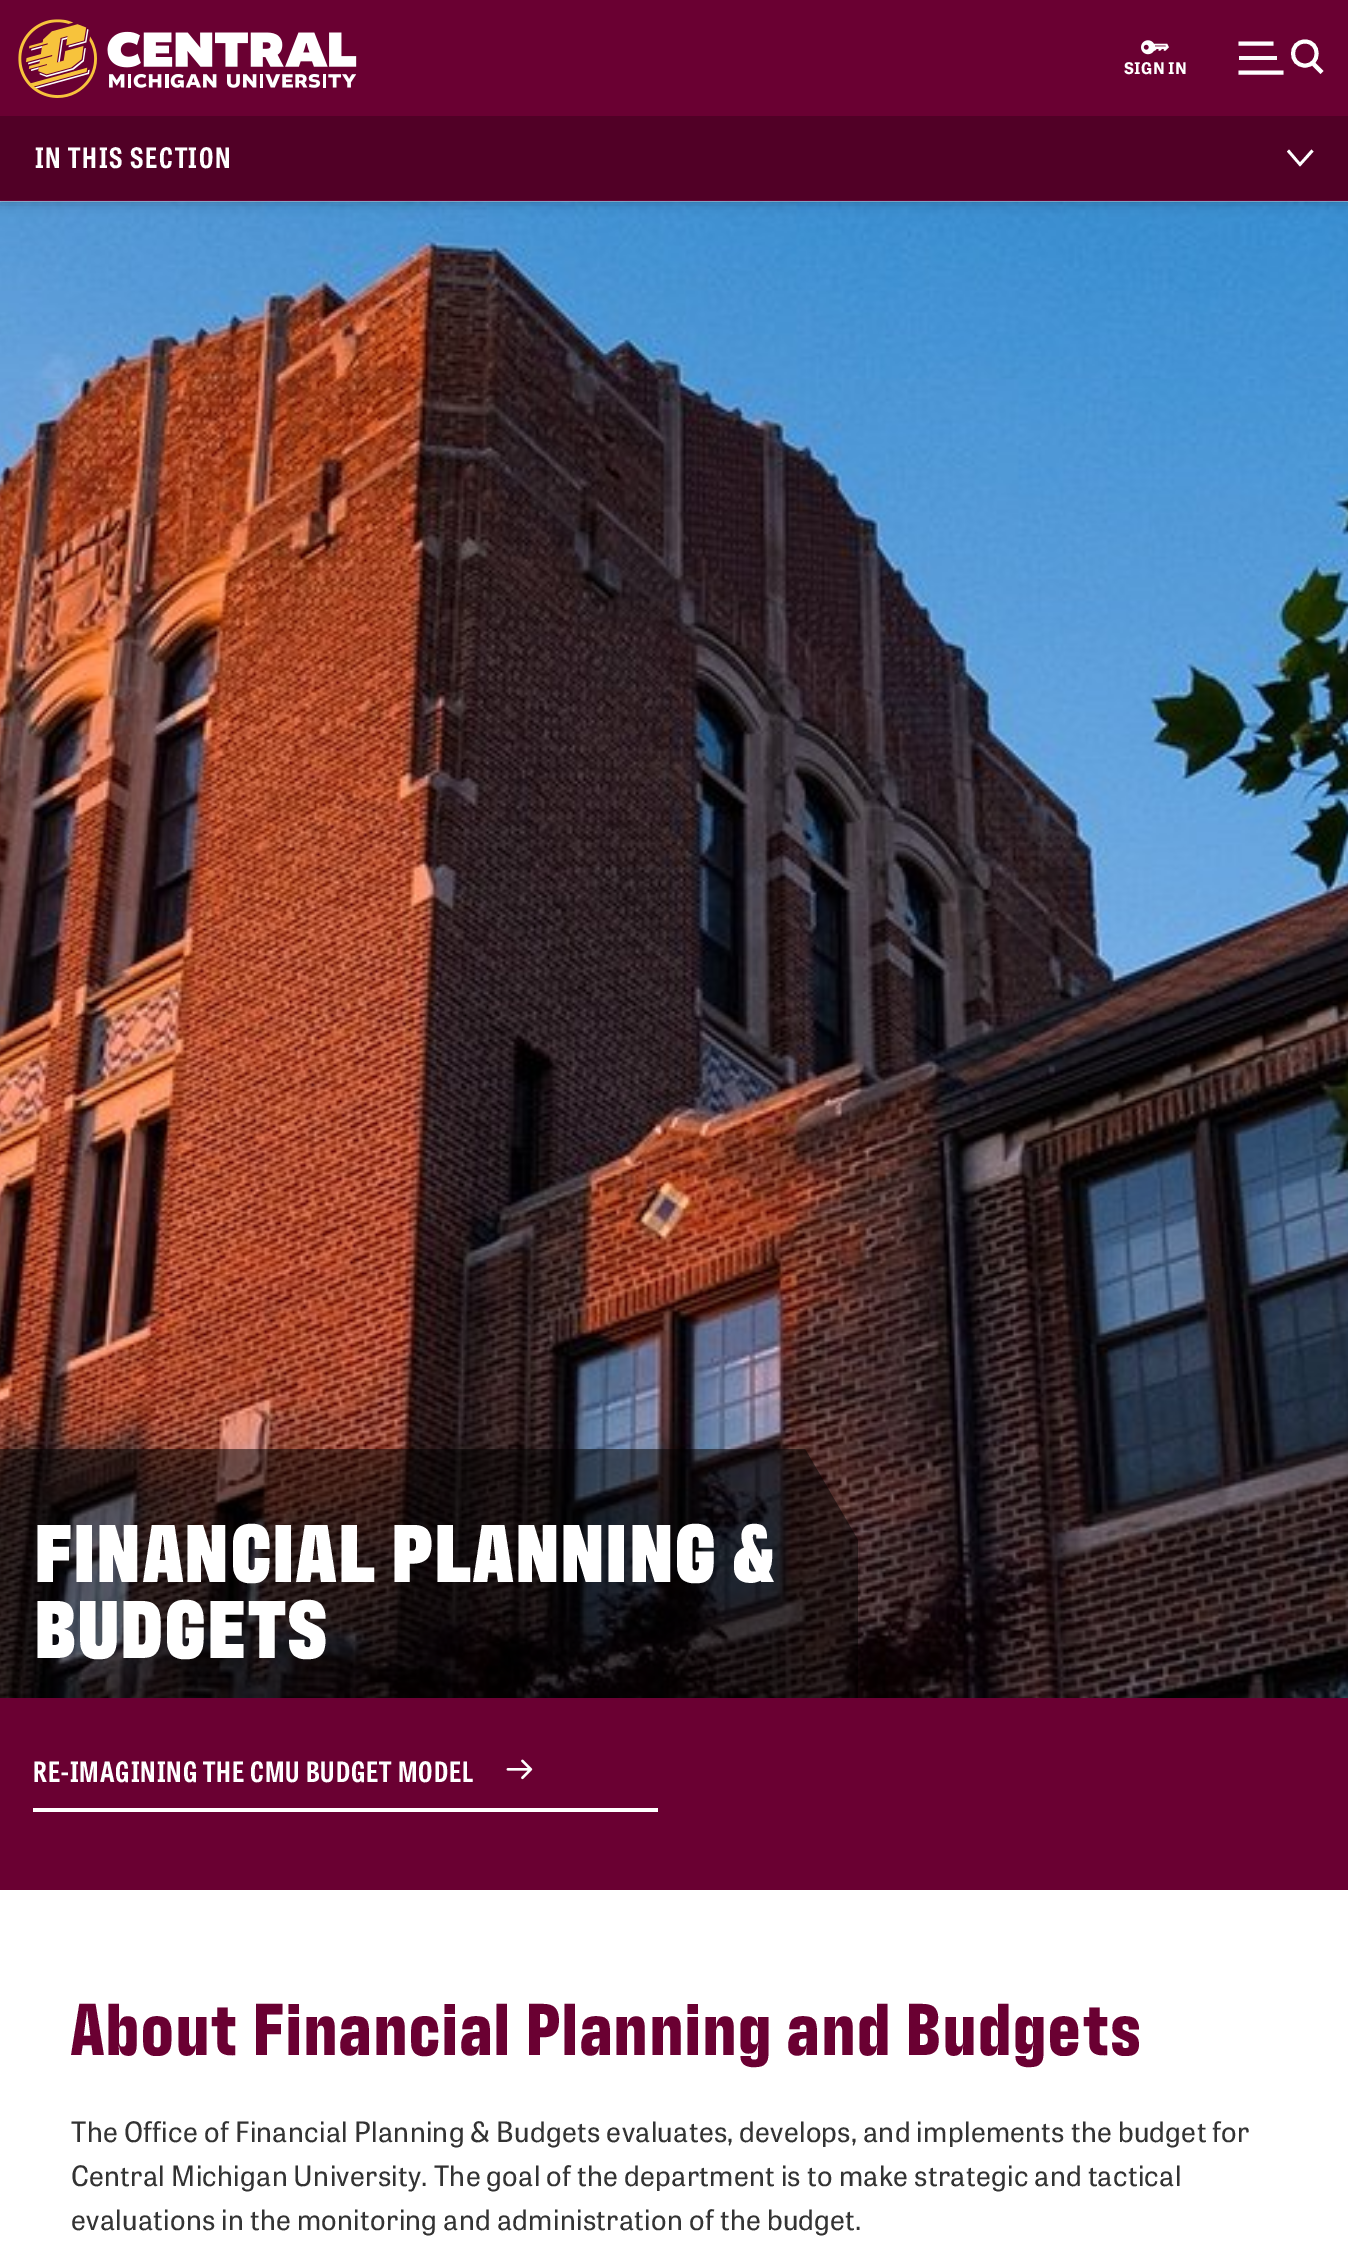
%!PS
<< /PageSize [1348 2255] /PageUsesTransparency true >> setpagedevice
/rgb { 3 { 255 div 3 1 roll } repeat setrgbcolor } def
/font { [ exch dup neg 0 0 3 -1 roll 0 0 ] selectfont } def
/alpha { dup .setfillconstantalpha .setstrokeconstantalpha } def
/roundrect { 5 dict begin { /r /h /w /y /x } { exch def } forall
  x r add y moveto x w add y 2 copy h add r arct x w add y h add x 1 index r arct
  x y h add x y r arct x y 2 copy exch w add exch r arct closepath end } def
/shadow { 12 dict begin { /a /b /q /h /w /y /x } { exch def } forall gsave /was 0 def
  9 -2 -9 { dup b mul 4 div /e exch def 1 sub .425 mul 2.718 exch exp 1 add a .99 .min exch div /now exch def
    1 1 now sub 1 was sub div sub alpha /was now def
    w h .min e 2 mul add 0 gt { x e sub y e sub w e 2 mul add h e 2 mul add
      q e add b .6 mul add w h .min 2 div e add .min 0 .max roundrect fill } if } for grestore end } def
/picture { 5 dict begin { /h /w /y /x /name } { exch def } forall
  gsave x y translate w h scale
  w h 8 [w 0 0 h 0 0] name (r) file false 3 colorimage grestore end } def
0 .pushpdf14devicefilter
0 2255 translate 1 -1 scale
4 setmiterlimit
255 255 255 rgb
0 0 1348 2255 rectfill
(img_03.rgb) 0 201 1348 1497 picture
0 0 0 rgb
0 116 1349 85 0 7 0.3 shadow
106 0 50 rgb
0 0 1348 116 rectfill
(img_01.rgb) 18 19 339 79 picture
(img_02.rgb) 1141 40 28 15 picture
255 255 255 rgb
3.9 setlinewidth
1305 65.5 moveto 15.5 0 15.5 -24 0 -24 rcurveto -16 0 -16 24 0 24 rcurveto closepath 1313 63.5 moveto 9 9 rlineto stroke
1238.5 43.5 moveto 35 0 rlineto stroke
251 249 250 rgb
1239 56 38 4 rectfill
255 255 255 rgb
1283.5 72.5 moveto -45 0 rlineto stroke
81 0 38 rgb
0 116 1348 84 rectfill
106 0 50 rgb
0 200 1348 1 rectfill
255 255 255 rgb
1289 149.5 moveto 11 13 rlineto 11.5 -13 rlineto 2 2 rlineto -13.5 15 rlineto -13 -15 rlineto closepath fill
0.5 alpha
0 0 0 rgb
0 1449 moveto 0 250 rlineto 858 0 rlineto 0 -159 rlineto -53 -91 rlineto closepath fill
1 alpha
106 0 50 rgb
-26 1698 moveto 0 1 rlineto 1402 0 rlineto 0 189 rlineto 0 -190 rlineto closepath fill
0 1699 1348 191 rectfill
255 255 255 rgb
33 1808 625 4 rectfill
(img_04.rgb) 506 1759 27 21 picture
/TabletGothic-Bold 16 font
1124 74 moveto 0.35 0 (SIGN IN) ashow
/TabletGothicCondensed-Bold 28 font
35 168 moveto 1.75 0 (IN THIS SECTION) ashow
/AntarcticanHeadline-Black 84 font
35 1582 moveto 2.5 0 (FINANCIAL PLANNING &) ashow
35 1658 moveto 2.5 0 (BUDGETS) ashow
/TabletGothicCondensed-Bold 28 font
33 1782 moveto 1.05 0 (RE-IMAGINING THE CMU BUDGET MODEL) ashow
/AntarcticanHeadline-Bold 75.25 font
106 0 50 rgb
71 2055 moveto 2.1 0 (About Financial Planning and Budgets) ashow
/TabletGothic-Regular 28 font
51 51 51 rgb
71 2142 moveto 0.35 0 (The Office of Financial Planning & Budgets evaluates, develops, and implements the budget for) ashow
71 2186 moveto 0.35 0 (Central Michigan University. The goal of the department is to make strategic and tactical) ashow
71 2230 moveto 0.35 0 (evaluations in the monitoring and administration of the budget.) ashow
.poppdf14devicefilter showpage
